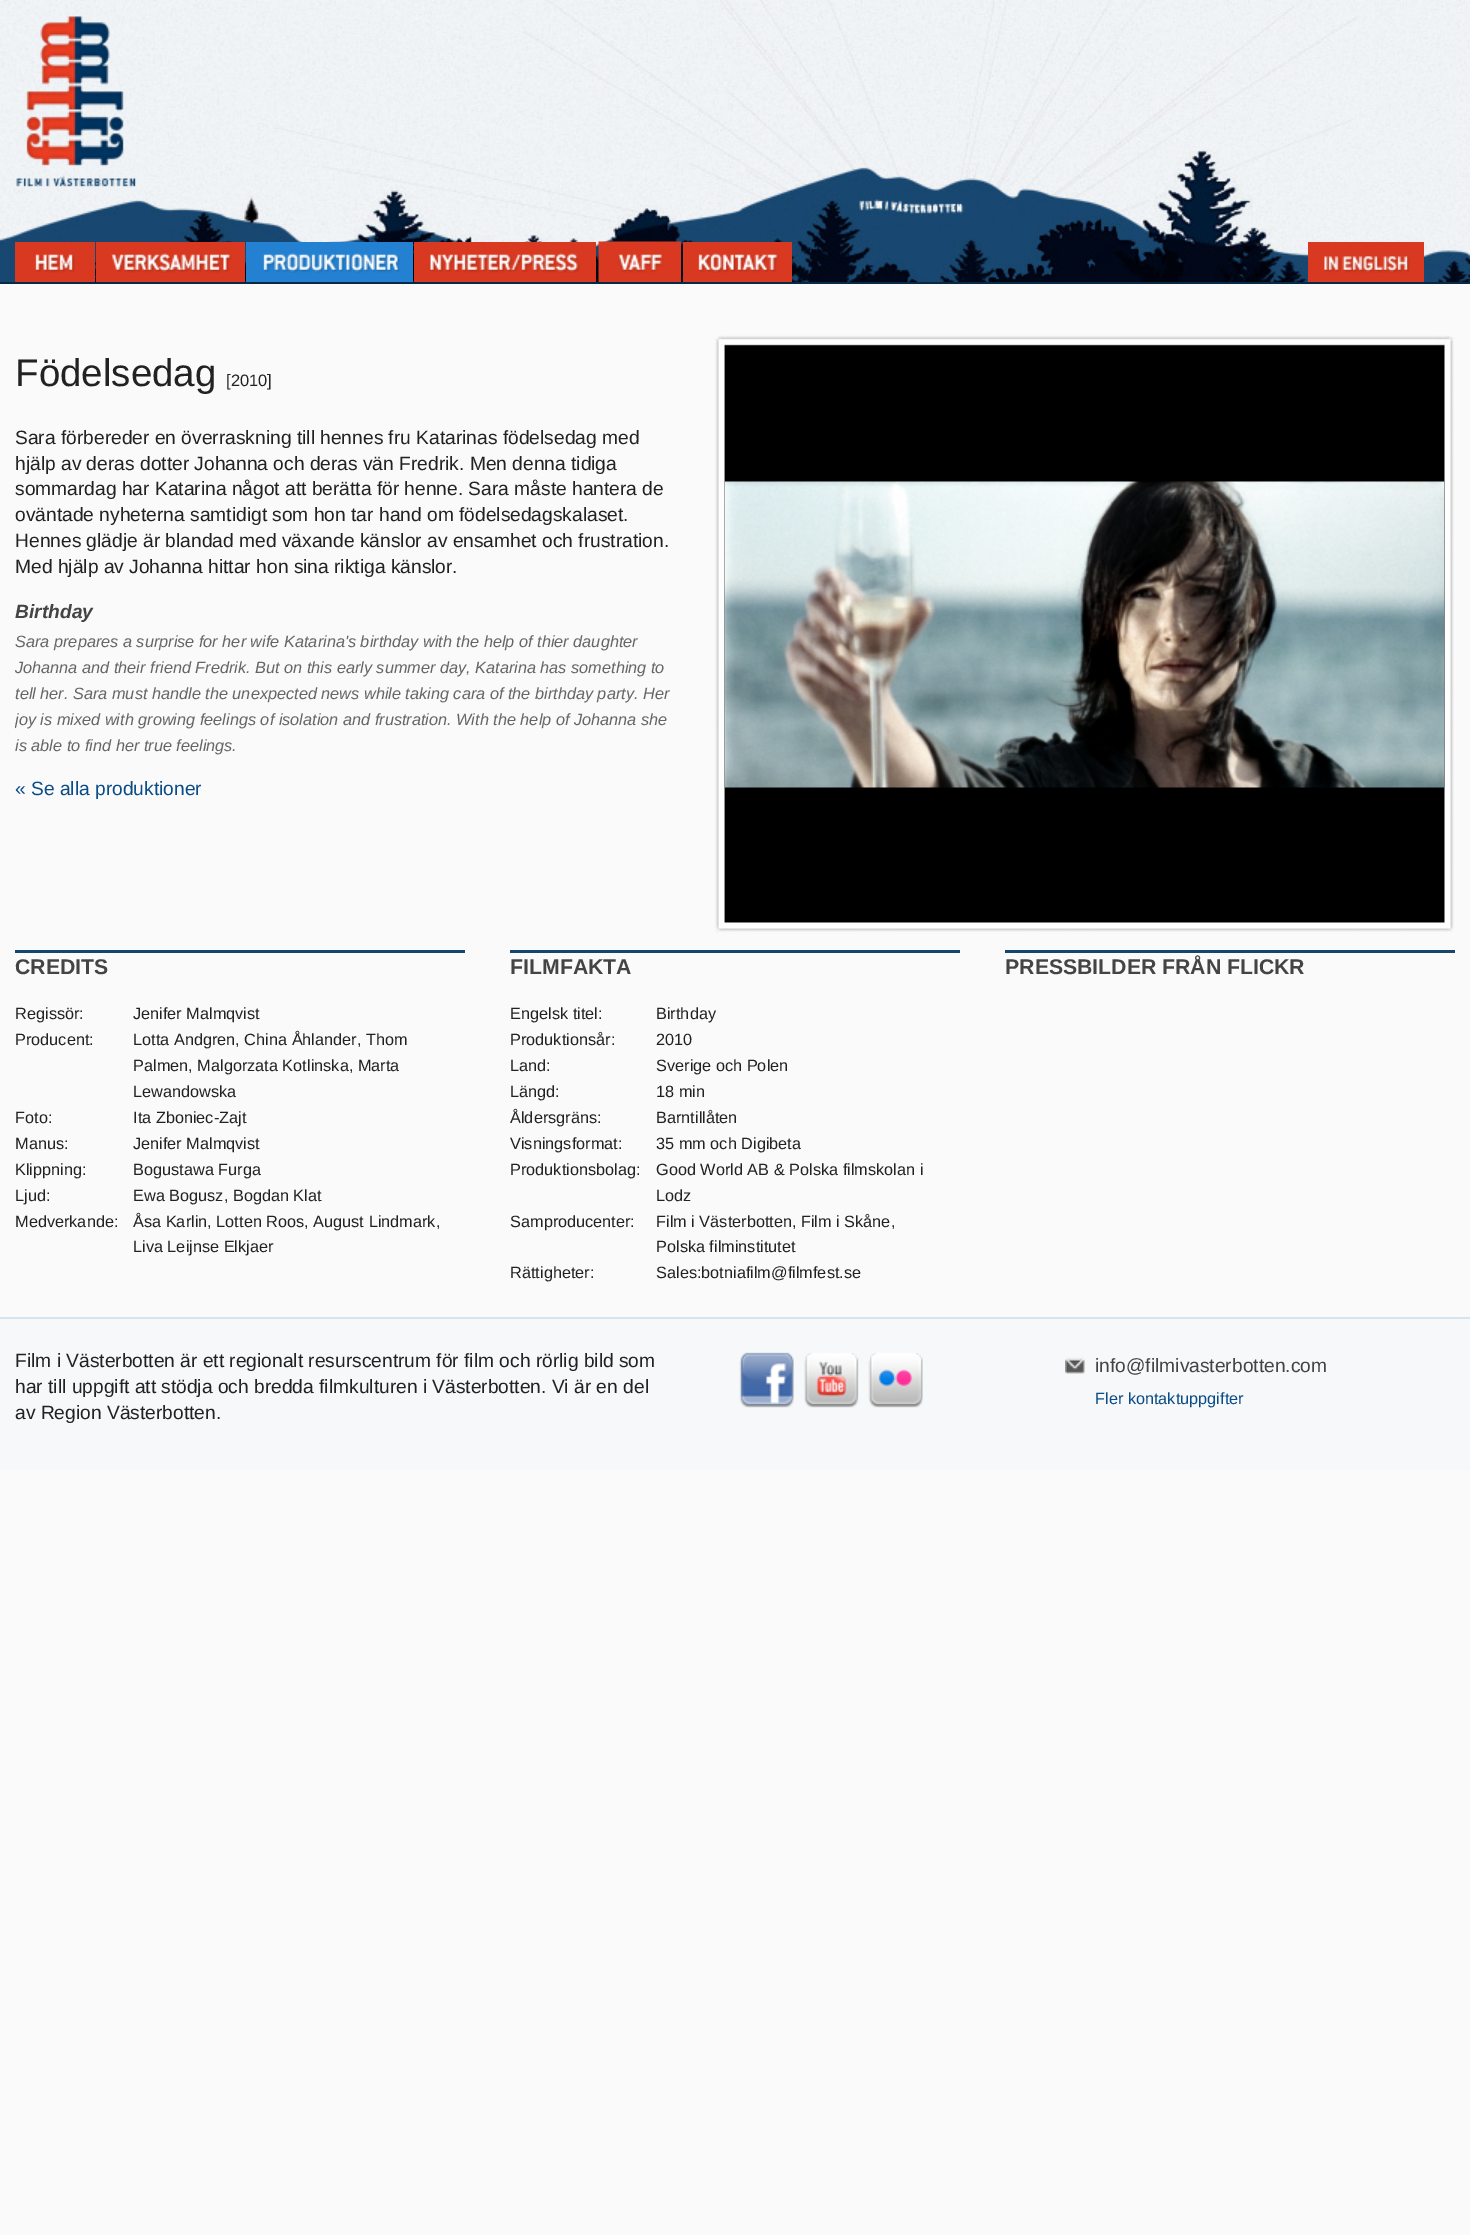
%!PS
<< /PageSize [1470 2235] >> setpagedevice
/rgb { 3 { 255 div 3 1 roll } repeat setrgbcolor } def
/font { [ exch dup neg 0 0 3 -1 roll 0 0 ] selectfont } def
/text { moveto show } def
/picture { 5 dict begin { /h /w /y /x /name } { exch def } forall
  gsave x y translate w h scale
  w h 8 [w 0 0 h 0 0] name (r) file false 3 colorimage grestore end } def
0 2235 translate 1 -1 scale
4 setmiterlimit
250 250 250 rgb
0 0 1470 2235 rectfill
(img_01.rgb) 0 0 1470 282 picture
8 41 69 rgb
0 282 1470 2 rectfill
(img_02.rgb) 16 16 120 171 picture
216 57 32 rgb
15 242 80 40 rectfill
(img_03.rgb) 35 254 40 19 picture
96 242 149 40 rectfill
(img_04.rgb) 111 253 121 20 picture
36 129 209 rgb
246 242 167 40 rectfill
(img_05.rgb) 263 253 137 20 picture
216 57 32 rgb
414 242 182 40 rectfill
(img_06.rgb) 430 253 150 20 picture
(img_07.rgb) 598 241 83 41 picture
683 242 109 40 rectfill
(img_08.rgb) 698 253 81 20 picture
1308 242 116 40 rectfill
(img_09.rgb) 1324 256 86 17 picture
(img_10.rgb) 714 335 741 598 picture
(img_11.rgb) 724 481 721 307 picture
23 70 109 rgb
15 950 450 3 rectfill
510 950 450 3 rectfill
1005 950 450 3 rectfill
246 248 250 rgb
0 1319 1470 151 rectfill
213 228 241 rgb
0 1317 1470 2 rectfill
(img_12.rgb) 739 1352 55 56 picture
(img_13.rgb) 804 1353 55 55 picture
(img_14.rgb) 868 1353 55 55 picture
(img_15.rgb) 1065 1357 20 17 picture
/LiberationSans-Regular 38.5 font
34 34 34 rgb
(Födelsedag) 15 386 text
/LiberationSans-Regular 16.5 font
([2010]) 226 386 text
/LiberationSans-Regular 19.2 font
(Sara förbereder en överraskning till hennes fru Katarinas födelsedag med) 15 444 text
(hjälp av deras dotter Johanna och deras vän Fredrik. Men denna tidiga) 15 470 text
(sommardag har Katarina något att berätta för henne. Sara måste hantera de) 15 495 text
(oväntade nyheterna samtidigt som hon tar hand om födelsedagskalaset.) 15 521 text
(Hennes glädje är blandad med växande känslor av ensamhet och frustration.) 15 547 text
(Med hjälp av Johanna hittar hon sina riktiga känslor.) 15 573 text
/LiberationSans-BoldItalic 19.2 font
68 68 68 rgb
(Birthday) 15 618 text
/LiberationSans-Italic 16.3 font
102 102 102 rgb
(Sara prepares a surprise for her wife Katarina's birthday with the help of thier daughter) 15 647 text
(Johanna and their friend Fredrik. But on this early summer day, Katarina has something to) 15 673 text
(tell her. Sara must handle the unexpected news while taking cara of the birthday party. Her) 15 699 text
gsave
15 350 1440 937 rectclip
(joy is mixed with growing feelings of isolation and frustration. With the help of Johanna she) 15 725 text
grestore
(is able to find her true feelings.) 15 751 text
/LiberationSans-Regular 19.2 font
9 76 134 rgb
(« Se alla produktioner) 15 795 text
/LiberationSans-Bold 21.25 font
68 68 68 rgb
(CREDITS) 15 974 text
/LiberationSans-Regular 16.3 font
34 34 34 rgb
(Regissör:) 15 1019 text
(Jenifer Malmqvist) 133 1019 text
(Producent:) 15 1045 text
(Lotta Andgren, China Åhlander, Thom) 133 1045 text
(Palmen, Malgorzata Kotlinska, Marta) 133 1071 text
(Lewandowska) 133 1097 text
(Foto:) 15 1123 text
(Ita Zboniec-Zajt) 133 1123 text
(Manus:) 15 1149 text
(Jenifer Malmqvist) 133 1149 text
(Klippning:) 15 1175 text
(Bogustawa Furga) 133 1175 text
(Ljud:) 15 1201 text
(Ewa Bogusz, Bogdan Klat) 133 1201 text
(Medverkande:) 15 1227 text
(Åsa Karlin, Lotten Roos, August Lindmark,) 133 1227 text
(Liva Leijnse Elkjaer) 133 1252 text
/LiberationSans-Bold 21.25 font
68 68 68 rgb
(FILMFAKTA) 510 974 text
/LiberationSans-Regular 16.3 font
34 34 34 rgb
(Engelsk titel:) 510 1019 text
(Birthday) 656 1019 text
(Produktionsår:) 510 1045 text
(2010) 656 1045 text
(Land:) 510 1071 text
(Sverige och Polen) 656 1071 text
(Längd:) 510 1097 text
(18 min) 656 1097 text
(Åldersgräns:) 510 1123 text
(Barntillåten) 656 1123 text
(Visningsformat:) 510 1149 text
(35 mm och Digibeta) 656 1149 text
(Produktionsbolag:) 510 1175 text
(Good World AB & Polska filmskolan i) 656 1175 text
(Lodz) 656 1201 text
(Samproducenter:) 510 1227 text
(Film i Västerbotten, Film i Skåne,) 656 1227 text
(Polska filminstitutet) 656 1252 text
(Rättigheter:) 510 1278 text
(Sales:botniafilm@filmfest.se) 656 1278 text
/LiberationSans-Bold 21.25 font
68 68 68 rgb
(PRESSBILDER FRÅN FLICKR) 1005 974 text
/LiberationSans-Regular 19.2 font
34 34 34 rgb
(Film i Västerbotten är ett regionalt resurscentrum för film och rörlig bild som) 15 1367 text
(har till uppgift att stödja och bredda filmkulturen i Västerbotten. Vi är en del) 15 1393 text
(av Region Västerbotten.) 15 1419 text
68 68 68 rgb
(info@filmivasterbotten.com) 1095 1372 text
/LiberationSans-Regular 16.3 font
9 76 134 rgb
(Fler kontaktuppgifter) 1095 1404 text
showpage
